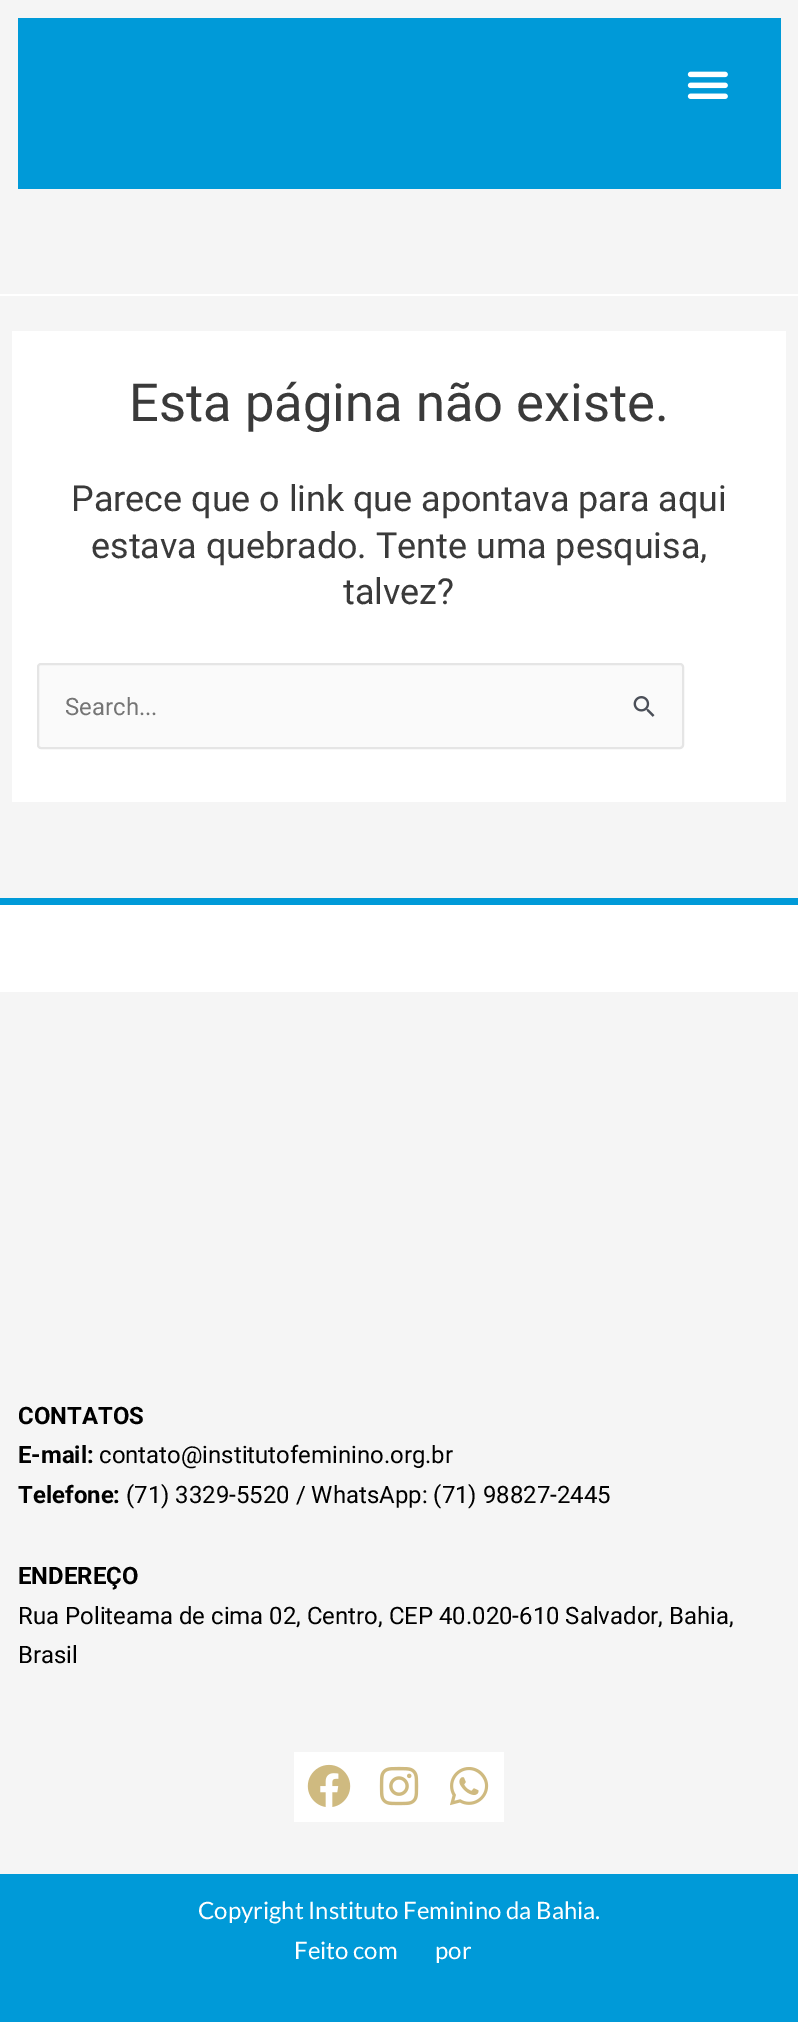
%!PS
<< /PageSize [798 2022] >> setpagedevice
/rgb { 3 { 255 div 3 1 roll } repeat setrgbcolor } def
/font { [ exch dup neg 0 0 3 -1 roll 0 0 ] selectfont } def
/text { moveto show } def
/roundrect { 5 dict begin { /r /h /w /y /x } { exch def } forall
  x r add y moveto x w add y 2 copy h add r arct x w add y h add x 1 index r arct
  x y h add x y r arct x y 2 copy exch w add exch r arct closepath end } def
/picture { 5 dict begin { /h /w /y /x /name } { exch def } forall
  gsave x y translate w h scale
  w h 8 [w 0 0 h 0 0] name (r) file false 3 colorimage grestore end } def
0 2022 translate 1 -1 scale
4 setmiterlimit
245 245 245 rgb
0 0 798 2022 rectfill
0 154 216 rgb
18 18 763 171 rectfill
(img_01.rgb) 687 71 41 28 picture
255 255 255 rgb
0 294 798 2 rectfill
12 331 774 471 rectfill
250 250 250 rgb
38 664 645 84 3 roundrect gsave fill grestore
229 229 229 rgb
2 setlinewidth
stroke
(img_02.rgb) 633 696 22 21 picture
255 255 255 rgb
0 905 798 87 rectfill
0 154 216 rgb
0 898 798 7 rectfill
255 255 255 rgb
294 1752 210 70 rectfill
(img_03.rgb) 307 1764 44 43 picture
(img_04.rgb) 379 1766 40 40 picture
(img_05.rgb) 450 1767 39 39 picture
0 154 216 rgb
0 1874 798 148 rectfill
/Roboto-Regular 52.5 font
58 58 58 rgb
(Esta página não existe.) 129 421 text
/Roboto-Regular 35.9 font
(Parece que o link que apontava para aqui) 71 511 text
(estava quebrado. Tente uma pesquisa,) 91 558 text
(talvez?) 343 604 text
/Roboto-Regular 23.95 font
117 117 117 rgb
(Search...) 65 715 text
/Roboto-Bold 23.95 font
0 0 0 rgb
(CONTATOS) 18 1424 text
(E-mail:) 18 1463 text
/Roboto-Regular 23.95 font
(contato@institutofeminino.org.br) 99 1463 text
/Roboto-Bold 23.95 font
(Telefone:) 18 1503 text
/Roboto-Regular 23.95 font
(\(71\) 3329-5520 / WhatsApp: \(71\) 98827-2445) 126 1503 text
/Roboto-Bold 23.95 font
(ENDEREÇO) 18 1584 text
/Roboto-Regular 23.95 font
(Rua Politeama de cima 02, Centro, CEP 40.020-610 Salvador, Bahia,) 18 1624 text
(Brasil) 18 1663 text
/Lato-Regular 23.95 font
255 255 255 rgb
(Copyright Instituto Feminino da Bahia.) 198 1919 text
(Feito com) 294 1959 text
(por) 435 1959 text
showpage
